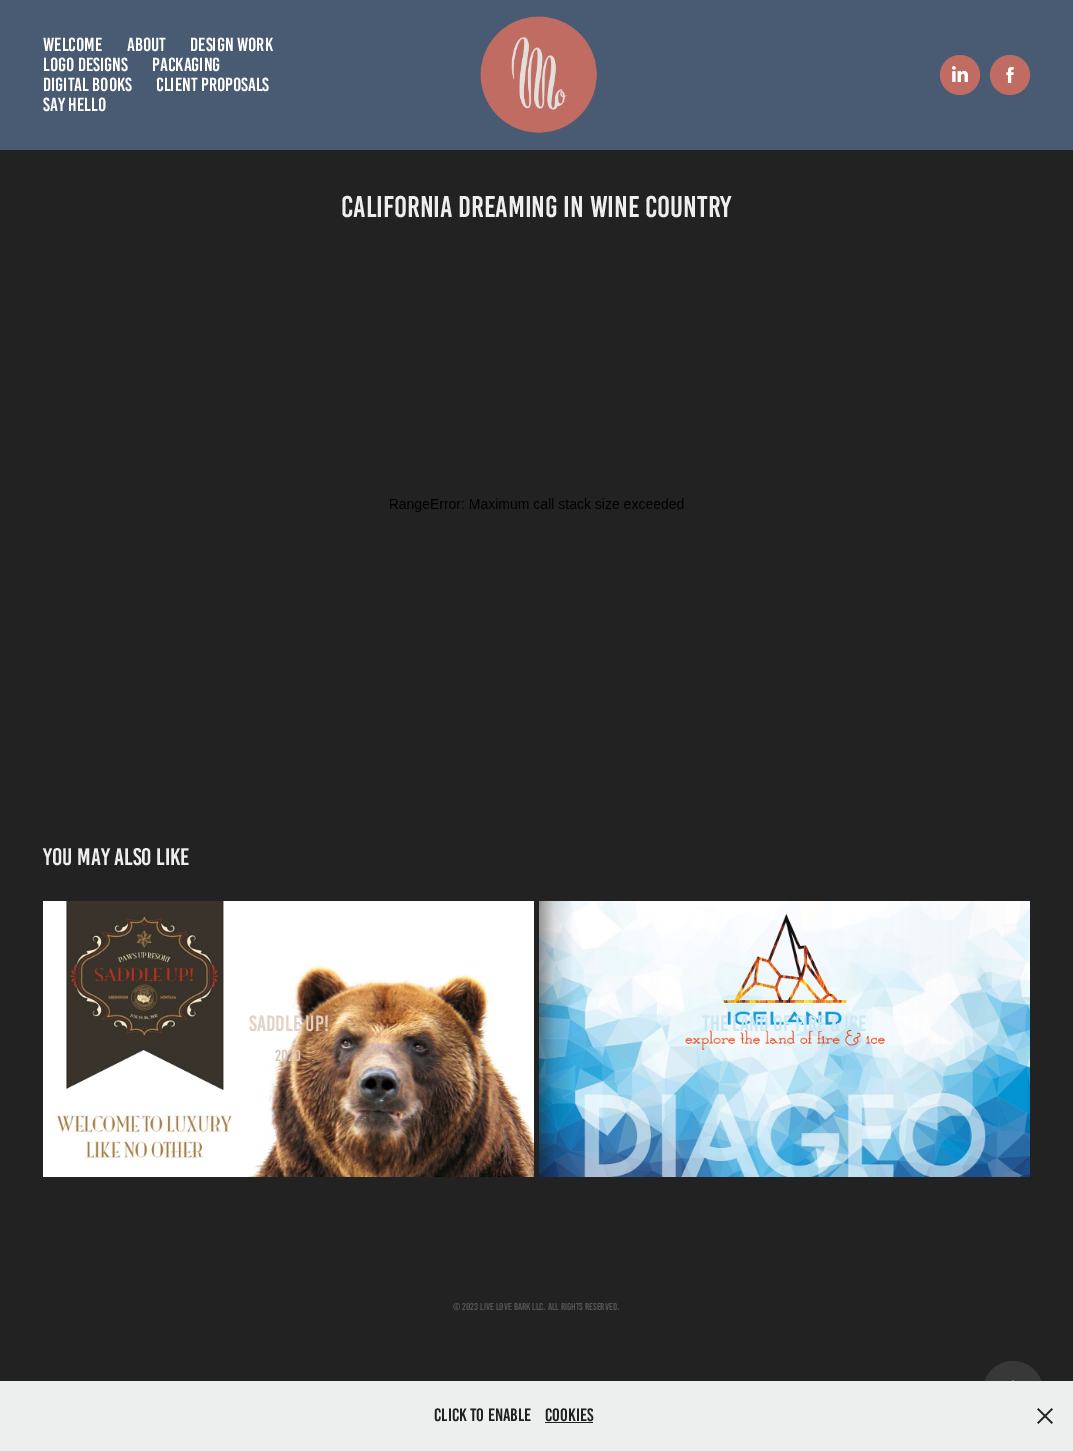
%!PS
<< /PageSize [1073 1451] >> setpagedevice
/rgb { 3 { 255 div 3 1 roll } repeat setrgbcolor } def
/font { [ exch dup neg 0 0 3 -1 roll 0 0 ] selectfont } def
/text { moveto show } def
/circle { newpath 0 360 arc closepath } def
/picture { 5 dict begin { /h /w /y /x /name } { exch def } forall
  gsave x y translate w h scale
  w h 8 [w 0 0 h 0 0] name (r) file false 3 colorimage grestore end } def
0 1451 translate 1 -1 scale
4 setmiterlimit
34 34 34 rgb
0 0 1073 1451 rectfill
73 91 115 rgb
0 0 1073 150 rectfill
(img_01.rgb) 480 16 117 117 picture
193 108 98 rgb
960 75 20 circle fill
(img_02.rgb) 952 66 16 16 picture
1010 75 20 circle fill
(img_03.rgb) 1006 67 8 16 picture
(img_04.rgb) 390 498 294 14 picture
(img_05.rgb) 43 901 491 276 picture
(img_06.rgb) 539 901 491 276 picture
56 56 56 rgb
1013 1391 30 circle fill
(img_07.rgb) 1011 1380 4 1 picture
237 238 238 rgb
0 1381 1073 70 rectfill
33 33 33 rgb
545 1422 48 1 rectfill
(img_08.rgb) 1037 1408 16 16 picture
/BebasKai-Regular 19 font
255 255 255 rgb
(WELCOME) 43 51 text
(ABOUT) 127 51 text
(DESIGN WORK) 190 51 text
(LOGO DESIGNS) 43 71 text
(PACKAGING) 152 71 text
(DIGITAL BOOKS) 43 91 text
(CLIENT PROPOSALS) 156 91 text
(SAY HELLO) 43 111 text
/BebasKai-Regular 30 font
238 238 238 rgb
(California Dreaming in Wine Country) 341 217 text
/BebasKai-Regular 24 font
(You may also like) 43 865 text
/BebasKai-Regular 22 font
226 209 196 rgb
(Saddle Up!) 249 1031 text
/BebasKai-Regular 16 font
221 196 176 rgb
(2020) 275 1061 text
/BebasKai-Regular 22 font
203 231 244 rgb
(The Land of Fire & Ice) 702 1031 text
/BebasKai-Regular 10 font
85 85 85 rgb
(© 2023 Live Love Bark LLC. All Rights Reserved.) 453 1310 text
/BebasKai-Regular 18 font
33 33 33 rgb
(Click to enable) 434 1421 text
(Cookies) 545 1421 text
showpage
